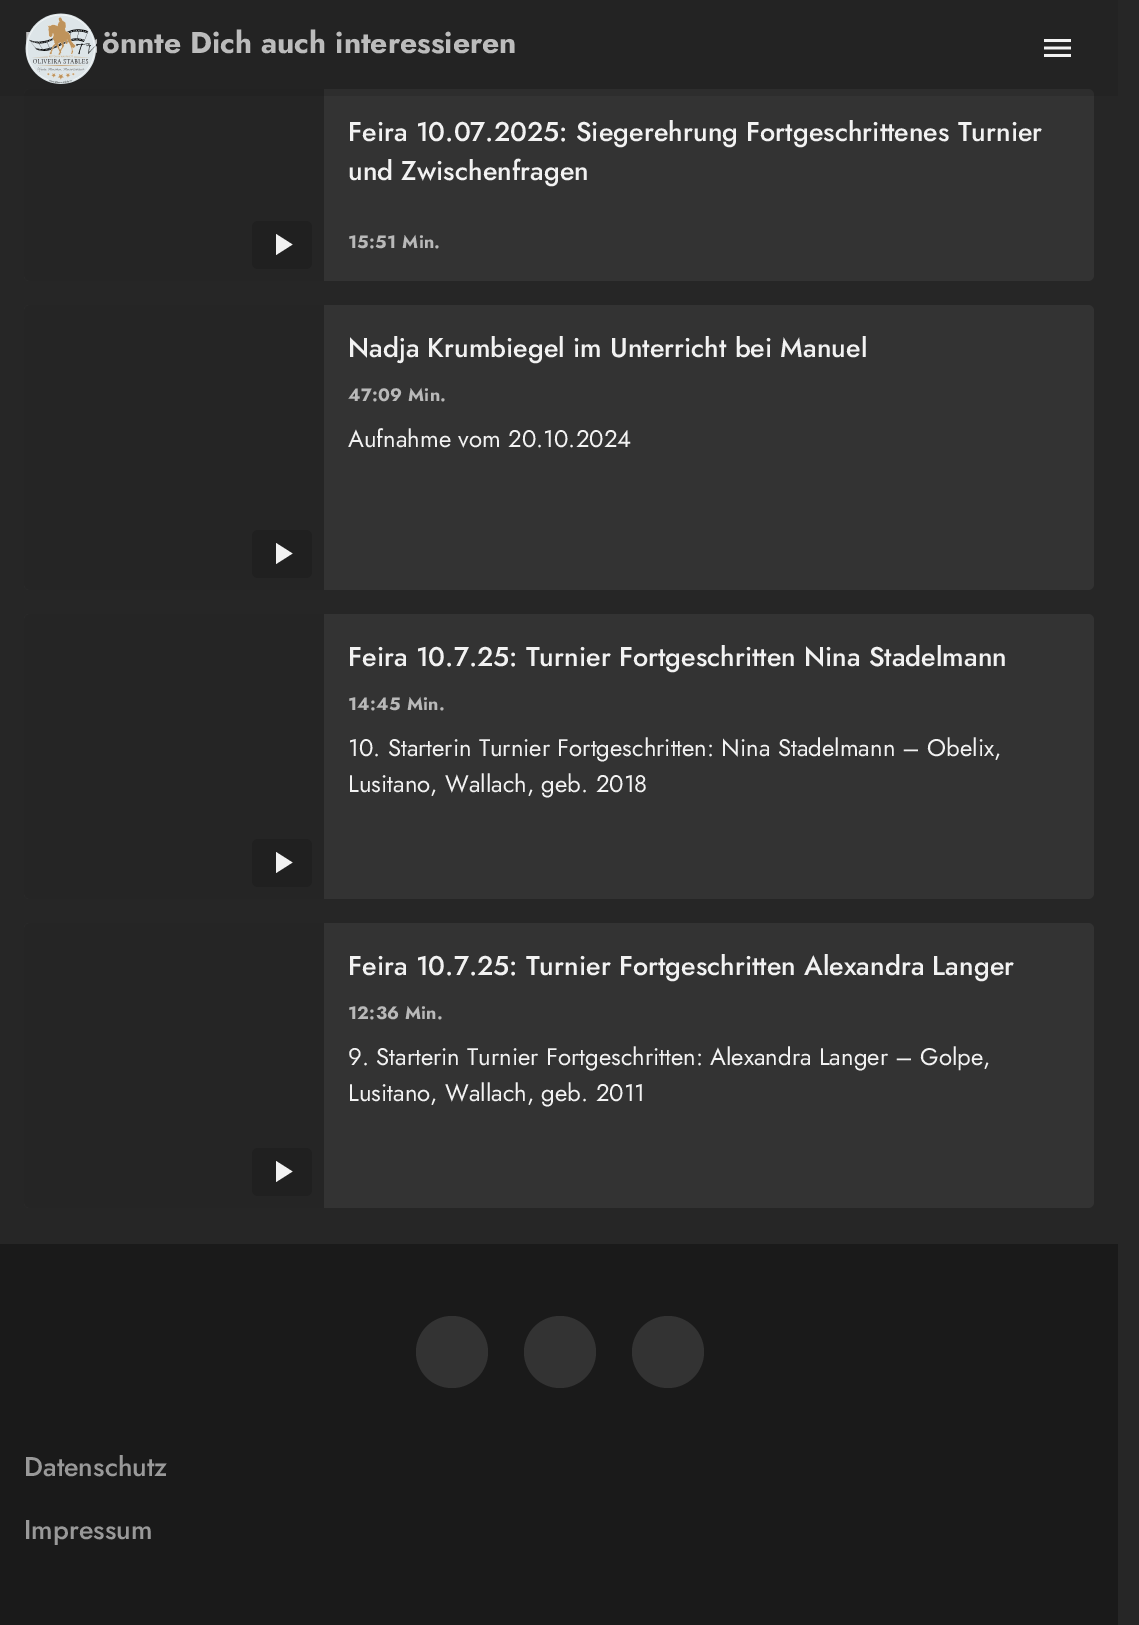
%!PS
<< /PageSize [1139 1625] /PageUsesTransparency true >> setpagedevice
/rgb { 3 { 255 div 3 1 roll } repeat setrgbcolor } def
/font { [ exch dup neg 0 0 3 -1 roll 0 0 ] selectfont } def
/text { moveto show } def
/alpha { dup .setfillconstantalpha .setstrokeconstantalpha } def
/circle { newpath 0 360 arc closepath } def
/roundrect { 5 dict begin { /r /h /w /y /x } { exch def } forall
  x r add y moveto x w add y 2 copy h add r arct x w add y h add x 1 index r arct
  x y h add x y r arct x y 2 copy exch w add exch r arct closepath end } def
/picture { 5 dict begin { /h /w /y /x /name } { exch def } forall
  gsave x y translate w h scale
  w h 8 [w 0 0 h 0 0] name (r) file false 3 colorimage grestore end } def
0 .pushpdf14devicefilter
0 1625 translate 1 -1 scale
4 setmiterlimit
38 38 38 rgb
0 0 1139 1625 rectfill
51 51 51 rgb
24 89 1070 192 6 roundrect fill
37 37 37 rgb
30 89 moveto 294 0 rlineto 0 192 rlineto -294 0 rlineto -3.5 0 -6 -2.5 -6 -6 rcurveto 0 -180 rlineto 0 -3.5 2.5 -6 6 -6 rcurveto closepath fill
32 32 32 rgb
252 221 60 48 6 roundrect fill
242 242 242 rgb
276 234 moveto 16.5 10.5 rlineto -16.5 10.5 rlineto closepath fill
51 51 51 rgb
24 305 1070 285 6 roundrect fill
37 37 37 rgb
30 305 moveto 294 0 rlineto 0 285 rlineto -294 0 rlineto -3.5 0 -6 -2.5 -6 -6 rcurveto 0 -273 rlineto 0 -3.5 2.5 -6 6 -6 rcurveto closepath fill
32 32 32 rgb
252 530 60 48 6 roundrect fill
242 242 242 rgb
276 543 moveto 16.5 10.5 rlineto -16.5 10.5 rlineto closepath fill
51 51 51 rgb
24 614 1070 285 6 roundrect fill
37 37 37 rgb
30 614 moveto 294 0 rlineto 0 285 rlineto -294 0 rlineto -3.5 0 -6 -2.5 -6 -6 rcurveto 0 -273 rlineto 0 -3.5 2.5 -6 6 -6 rcurveto closepath fill
32 32 32 rgb
252 839 60 48 6 roundrect fill
242 242 242 rgb
276 852 moveto 16.5 10.5 rlineto -16.5 10.5 rlineto closepath fill
51 51 51 rgb
24 923 1070 285 6 roundrect fill
37 37 37 rgb
30 923 moveto 294 0 rlineto 0 285 rlineto -294 0 rlineto -3.5 0 -6 -2.5 -6 -6 rcurveto 0 -273 rlineto 0 -3.5 2.5 -6 6 -6 rcurveto closepath fill
32 32 32 rgb
252 1148 60 48 6 roundrect fill
242 242 242 rgb
276 1161 moveto 16.5 10.5 rlineto -16.5 10.5 rlineto closepath fill
26 26 26 rgb
0 1244 1118 381 rectfill
51 51 51 rgb
452 1352 36 circle fill
560 1352 36 circle fill
668 1352 36 circle fill
/Jost-Bold 30 font
242 242 242 rgb
(önnte Dich auch interessieren) 102 53 text
0.25 alpha
26 26 26 rgb
0 0 1118 96 rectfill
1 alpha
(img_02.rgb) 1044 39 27 18 picture
(img_01.rgb) 25 13 72 71 picture
/Jost-Medium 27 font
242 242 242 rgb
(Feira 10.07.2025: Siegerehrung Fortgeschrittenes Turnier) 348 141 text
(und Zwischenfragen) 348 180 text
/Jost-Bold 18 font
185 185 185 rgb
348 248 moveto 0.25 0 (15:51 Min.) ashow
/Jost-Medium 27 font
242 242 242 rgb
(Nadja Krumbiegel im Unterricht bei Manuel) 348 357 text
/Jost-Bold 18 font
185 185 185 rgb
348 401 moveto 0.25 0 (47:09 Min.) ashow
/Jost-Regular 24 font
242 242 242 rgb
(Aufnahme vom 20.10.2024) 348 447 text
/Jost-Medium 27 font
(Feira 10.7.25: Turnier Fortgeschritten Nina Stadelmann) 348 666 text
/Jost-Bold 18 font
185 185 185 rgb
348 710 moveto 0.25 0 (14:45 Min.) ashow
/Jost-Regular 24 font
242 242 242 rgb
(10. Starterin Turnier Fortgeschritten: Nina Stadelmann – Obelix,) 348 756 text
(Lusitano, Wallach, geb. 2018) 348 792 text
/Jost-Medium 27 font
(Feira 10.7.25: Turnier Fortgeschritten Alexandra Langer) 348 975 text
/Jost-Bold 18 font
185 185 185 rgb
348 1019 moveto 0.25 0 (12:36 Min.) ashow
/Jost-Regular 24 font
242 242 242 rgb
(9. Starterin Turnier Fortgeschritten: Alexandra Langer – Golpe,) 348 1065 text
(Lusitano, Wallach, geb. 2011) 348 1101 text
/Jost-Medium 27 font
153 153 153 rgb
(Datenschutz) 24 1476 text
(Impressum) 24 1539 text
.poppdf14devicefilter showpage
